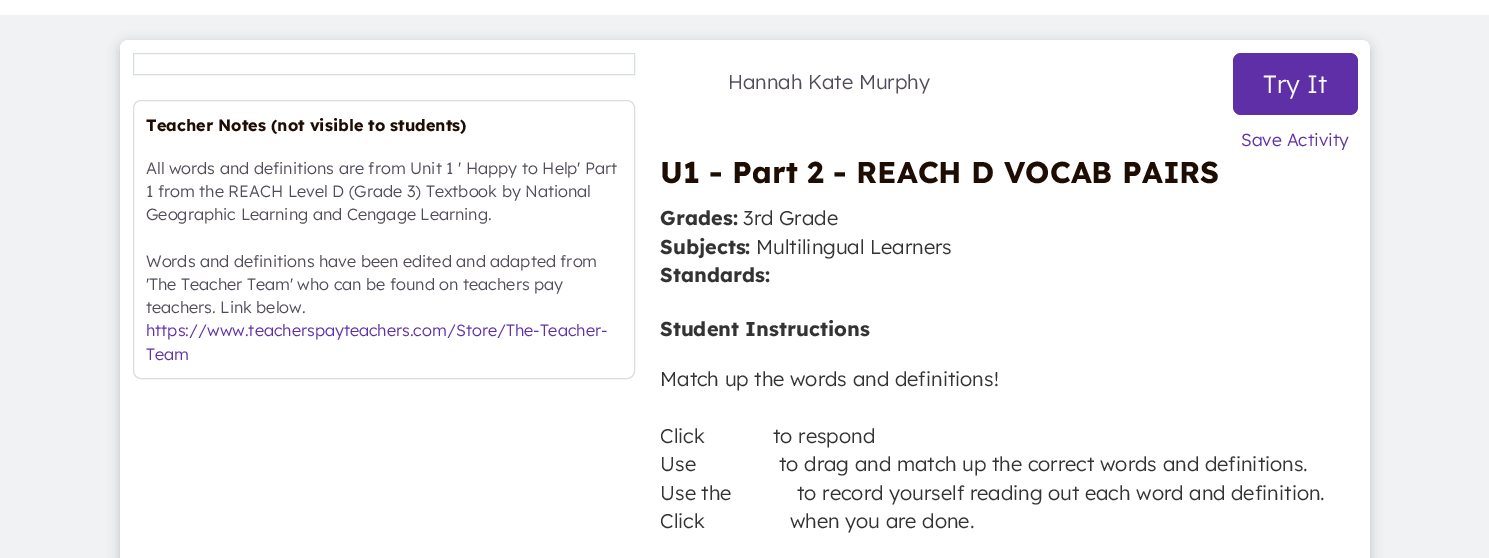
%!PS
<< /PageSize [1489 558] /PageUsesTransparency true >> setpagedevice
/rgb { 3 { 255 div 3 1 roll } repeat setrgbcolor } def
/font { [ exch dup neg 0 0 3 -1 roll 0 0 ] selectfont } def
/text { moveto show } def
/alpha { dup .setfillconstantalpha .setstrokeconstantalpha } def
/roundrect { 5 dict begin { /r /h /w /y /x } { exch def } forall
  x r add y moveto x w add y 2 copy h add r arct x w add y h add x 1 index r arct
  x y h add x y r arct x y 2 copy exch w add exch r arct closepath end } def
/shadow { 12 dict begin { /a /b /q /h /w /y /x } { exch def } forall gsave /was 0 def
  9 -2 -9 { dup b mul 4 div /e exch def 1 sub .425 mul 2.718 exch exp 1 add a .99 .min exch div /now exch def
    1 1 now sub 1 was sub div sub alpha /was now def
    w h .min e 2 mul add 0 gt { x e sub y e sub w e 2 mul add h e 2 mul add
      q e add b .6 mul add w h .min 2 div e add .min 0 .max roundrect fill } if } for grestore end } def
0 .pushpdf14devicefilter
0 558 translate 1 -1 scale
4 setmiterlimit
240 242 243 rgb
0 0 1489 558 rectfill
255 255 255 rgb
0 0 1489 15 rectfill
0 0 0 rgb
120 43 1250 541 8 6 0.2 shadow
255 255 255 rgb
120 40 1250 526 8 roundrect fill
216 221 227 rgb
133.5 53.5 501 21 rectstroke
133.5 100.5 501 278 7.5 roundrect stroke
95 47 168 rgb
1233 53 125 62 8 roundrect fill
/Lexend-Bold 16.25 font
30 13 3 rgb
(Teacher Notes \(not visible to students\)) 146 131 text
/Lexend-Light 16.25 font
82 75 89 rgb
(All words and definitions are from Unit 1 ' Happy to Help' Part) 146 174 text
(1 from the REACH Level D \(Grade 3\) Textbook by National) 146 197 text
(Geographic Learning and Cengage Learning.) 146 220 text
(Words and definitions have been edited and adapted from) 146 267 text
('The Teacher Team' who can be found on teachers pay) 146 290 text
(teachers. Link below.) 146 313 text
95 47 168 rgb
(https://www.teacherspayteachers.com/Store/The-Teacher-) 146 336 text
(Team) 146 360 text
/Lexend-Light 20 font
82 75 89 rgb
(Hannah Kate Murphy) 728 89 text
/Lexend-Light 25 font
255 255 255 rgb
(Try It) 1263 93 text
/Lexend-Light 17.5 font
95 47 168 rgb
(Save Activity) 1241 146 text
/Lexend-Bold 30 font
30 13 3 rgb
(U1 - Part 2 - REACH D VOCAB PAIRS) 660 183 text
/Lexend-Bold 20 font
51 51 51 rgb
(Grades:) 660 225 text
/Lexend-Light 20 font
(3rd Grade) 743 225 text
/Lexend-Bold 20 font
(Subjects:) 660 254 text
/Lexend-Light 20 font
(Multilingual Learners) 756 254 text
/Lexend-Bold 20 font
(Standards:) 660 282 text
(Student Instructions) 660 336 text
/Lexend-Light 20 font
(Match up the words and definitions!) 660 386 text
(Click) 660 443 text
(to respond) 773 443 text
(Use) 660 471 text
(to drag and match up the correct words and definitions.) 779 471 text
(Use the) 660 500 text
(to record yourself reading out each word and definition.) 797 500 text
(Click) 660 528 text
(when you are done.) 790 528 text
.poppdf14devicefilter showpage
